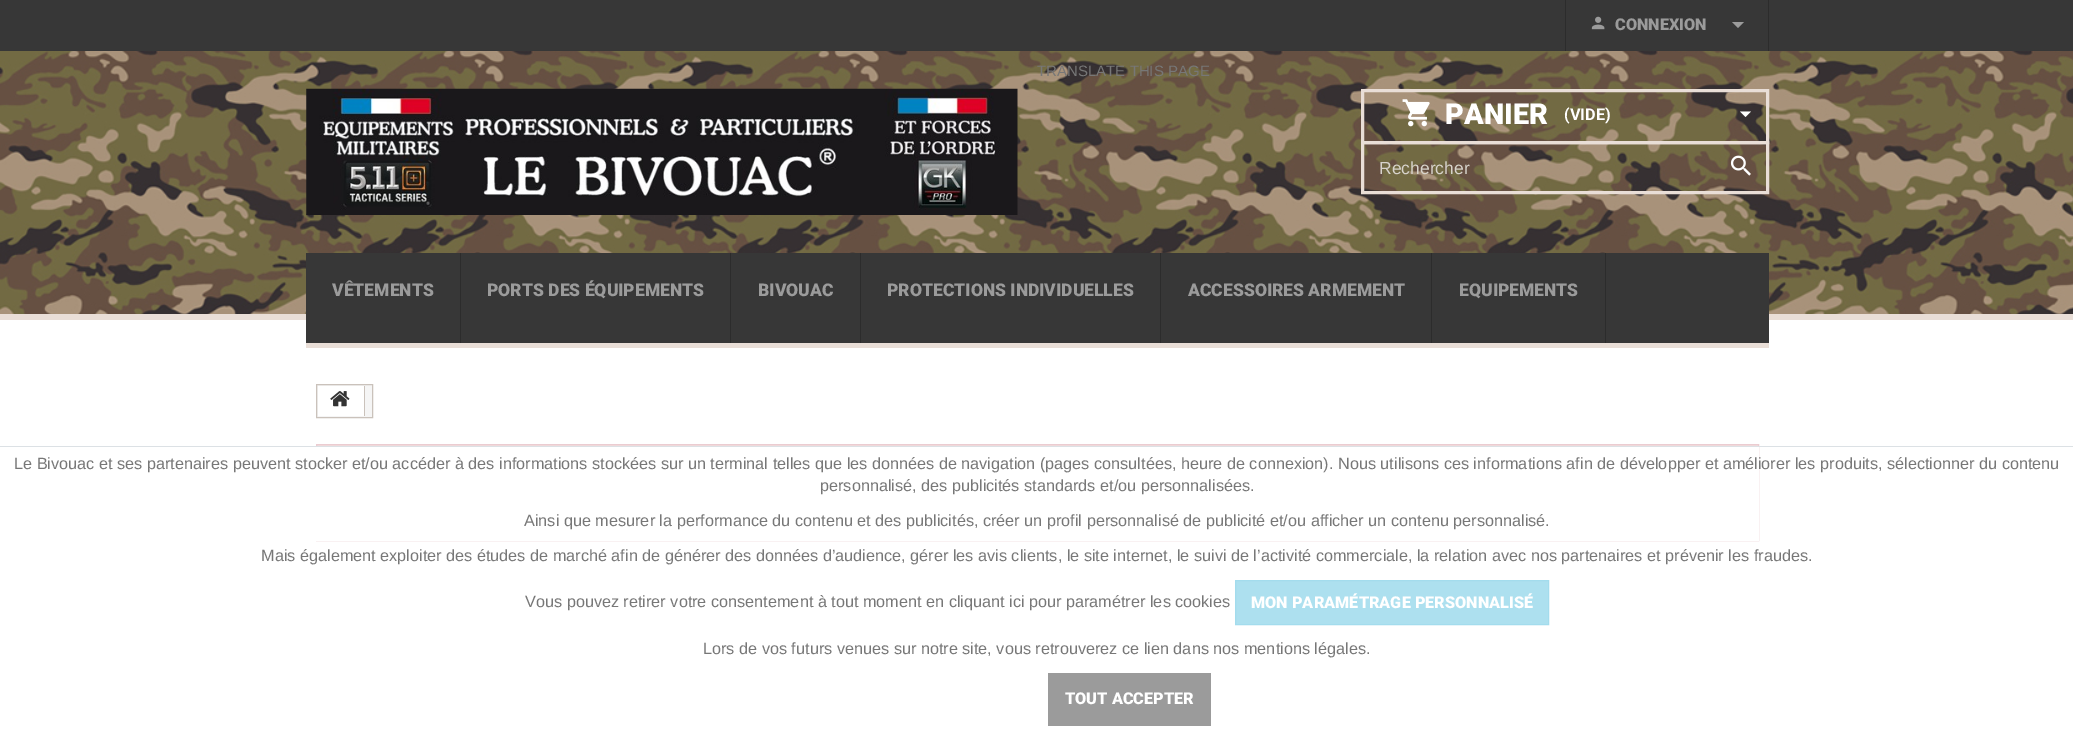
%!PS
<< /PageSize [2073 731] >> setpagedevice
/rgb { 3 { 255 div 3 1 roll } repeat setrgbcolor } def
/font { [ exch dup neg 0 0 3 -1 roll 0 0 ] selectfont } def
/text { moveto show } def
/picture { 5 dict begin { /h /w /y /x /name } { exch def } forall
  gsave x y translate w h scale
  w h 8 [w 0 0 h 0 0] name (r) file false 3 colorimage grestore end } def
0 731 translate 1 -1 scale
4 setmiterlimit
255 255 255 rgb
0 0 2073 731 rectfill
(img_01.rgb) 0 51 2073 263 picture
233 222 215 rgb
0 314 2073 6 rectfill
55 55 55 rgb
0 0 2073 51 rectfill
44 44 44 rgb
1768 0 1 51 rectfill
1565 0 1 51 rectfill
(img_02.rgb) 1591 16 14 14 picture
155 155 155 rgb
1732 22 moveto 6 6 rlineto 6 -6 rlineto closepath fill
(img_03.rgb) 306 88 712 127 picture
233 222 215 rgb
3 setlinewidth
1362.5 90.5 405 52 rectstroke
(img_04.rgb) 1402 99 28 28 picture
255 255 255 rgb
1740 111.5 moveto 5.5 5.5 rlineto 5.5 -5.5 rlineto closepath fill
233 222 215 rgb
1362.5 142.5 405 50 rectstroke
(img_05.rgb) 1730 155 21 21 picture
55 55 55 rgb
306 253 1463 90 rectfill
233 222 215 rgb
306 343 1463 5 rectfill
44 44 44 rgb
460 253 1 90 rectfill
730 253 1 90 rectfill
860 253 1 90 rectfill
1160 253 1 90 rectfill
1431 253 1 90 rectfill
1605 253 1 90 rectfill
245 245 245 rgb
316.5 384.5 moveto 56 0 rlineto 0 33 rlineto -56 0 rlineto closepath gsave fill grestore
202 194 187 rgb
1 setlinewidth
stroke
255 255 255 rgb
318 386 46 30 rectfill
202 194 187 rgb
364 386 1 30 rectfill
(img_06.rgb) 330 391 20 16 picture
242 222 222 rgb
317 445 1441 1 rectfill
235 204 209 rgb
316.5 444.5 1442 96 rectstroke
255 255 255 rgb
316 447 1443 94 rectfill
220 225 229 rgb
0 446 2073 1 rectfill
173 224 239 rgb
1235.5 580.5 moveto 313 0 rlineto 0 44 rlineto -313 0 rlineto closepath gsave fill grestore
163 220 237 rgb
stroke
155 155 155 rgb
1048 673 163 53 rectfill
/Roboto-Black 16.25 font
(CONNEXION) 1615 30 text
/LiberationSans-Regular 15 font
119 119 119 rgb
(TRANSLATE THIS PAGE) 1037 76 text
/Roboto-Black 29 font
255 255 255 rgb
(PANIER) 1445 124 text
/Roboto-Bold 16.25 font
(\(VIDE\)) 1564 120 text
/LiberationSans-Regular 17.5 font
215 211 203 rgb
(Rechercher) 1379 174 text
/Roboto-Black 17.5 font
155 155 155 rgb
(VÊTEMENTS) 332 296 text
(PORTS DES ÉQUIPEMENTS) 487 296 text
(BIVOUAC) 758 296 text
(PROTECTIONS INDIVIDUELLES) 887 296 text
(ACCESSOIRES ARMEMENT) 1188 296 text
(EQUIPEMENTS) 1459 296 text
/LiberationSans-Regular 16.25 font
119 119 119 rgb
(Le Bivouac et ses partenaires peuvent stocker et/ou accéder à des informations stockées sur un terminal telles que les données de navigation \(pages consultées, heure de connexion\). Nous utilisons ces informations afin de développer et améliorer les produits, sélectionner du contenu) 14 469 text
(personnalisé, des publicités standards et/ou personnalisées.) 820 491 text
(Ainsi que mesurer la performance du contenu et des publicités, créer un profil personnalisé de publicité et/ou afficher un contenu personnalisé.) 524 526 text
(Mais également exploiter des études de marché afin de générer des données d’audience, gérer les avis clients, le site internet, le suivi de l’activité commerciale, la relation avec nos partenaires et prévenir les fraudes.) 261 561 text
(Vous pouvez retirer votre consentement à tout moment en cliquant ici pour paramétrer les cookies) 525 607 text
/Roboto-Black 16.25 font
255 255 255 rgb
(MON PARAMÉTRAGE PERSONNALISÉ) 1251 608 text
/LiberationSans-Regular 16.25 font
119 119 119 rgb
(Lors de vos futurs venues sur notre site, vous retrouverez ce lien dans nos mentions légales.) 703 654 text
/Roboto-Black 16.25 font
255 255 255 rgb
(TOUT ACCEPTER) 1065 704 text
showpage
